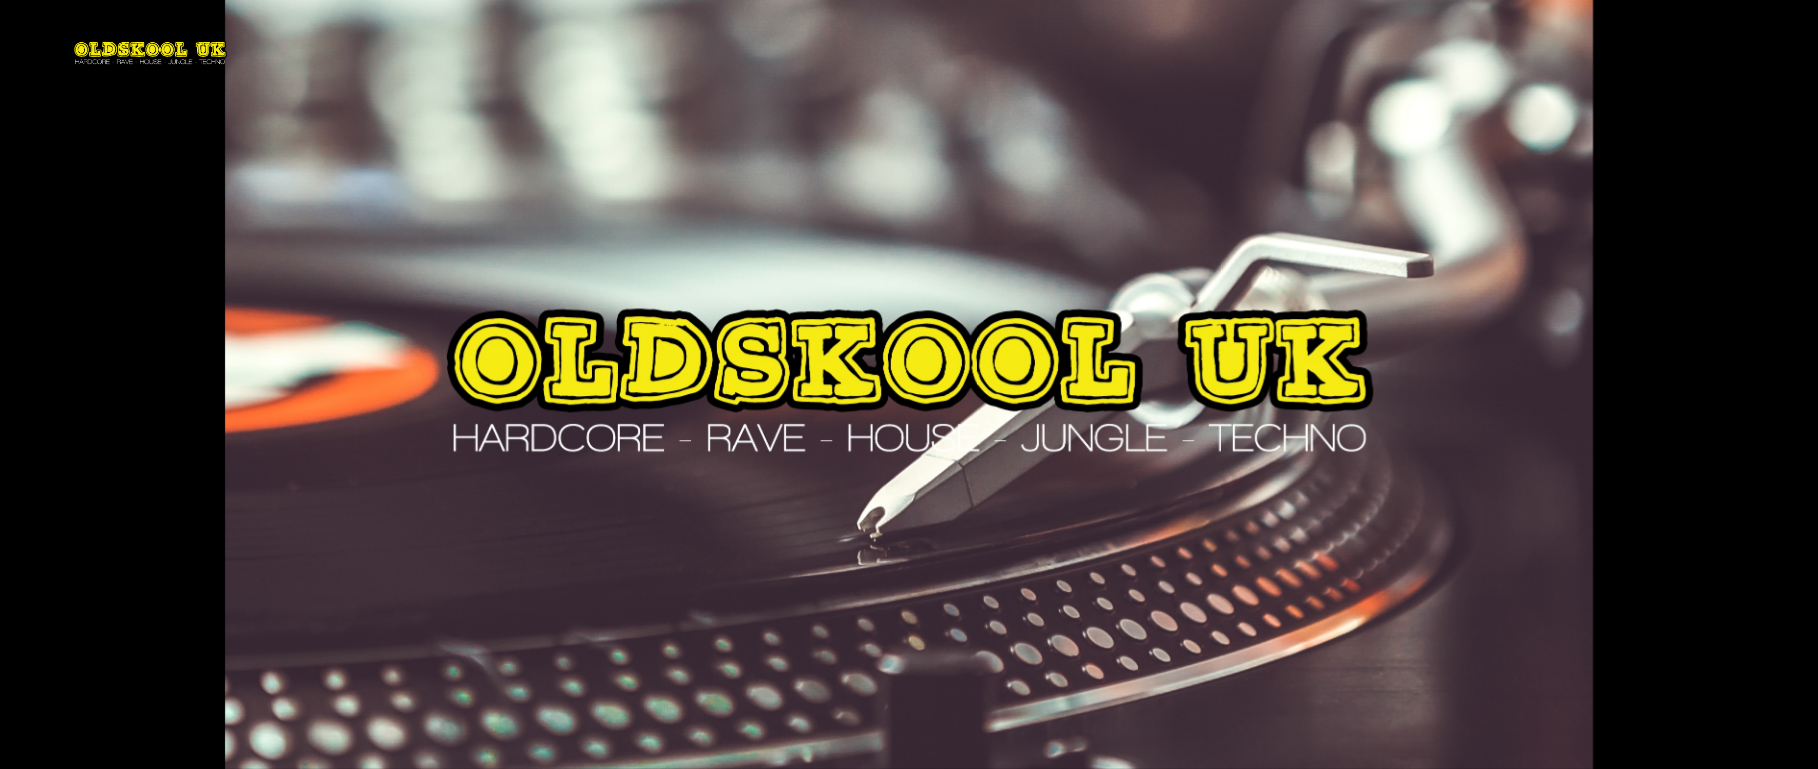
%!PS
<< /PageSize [1818 769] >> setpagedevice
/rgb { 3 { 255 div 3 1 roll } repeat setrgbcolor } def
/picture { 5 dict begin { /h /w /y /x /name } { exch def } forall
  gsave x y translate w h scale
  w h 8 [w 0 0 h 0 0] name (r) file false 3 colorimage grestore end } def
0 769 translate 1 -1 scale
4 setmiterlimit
0 0 0 rgb
0 0 1818 769 rectfill
(img_02.rgb) 224 0 1370 769 picture
(img_01.rgb) 74 40 153 25 picture
showpage
